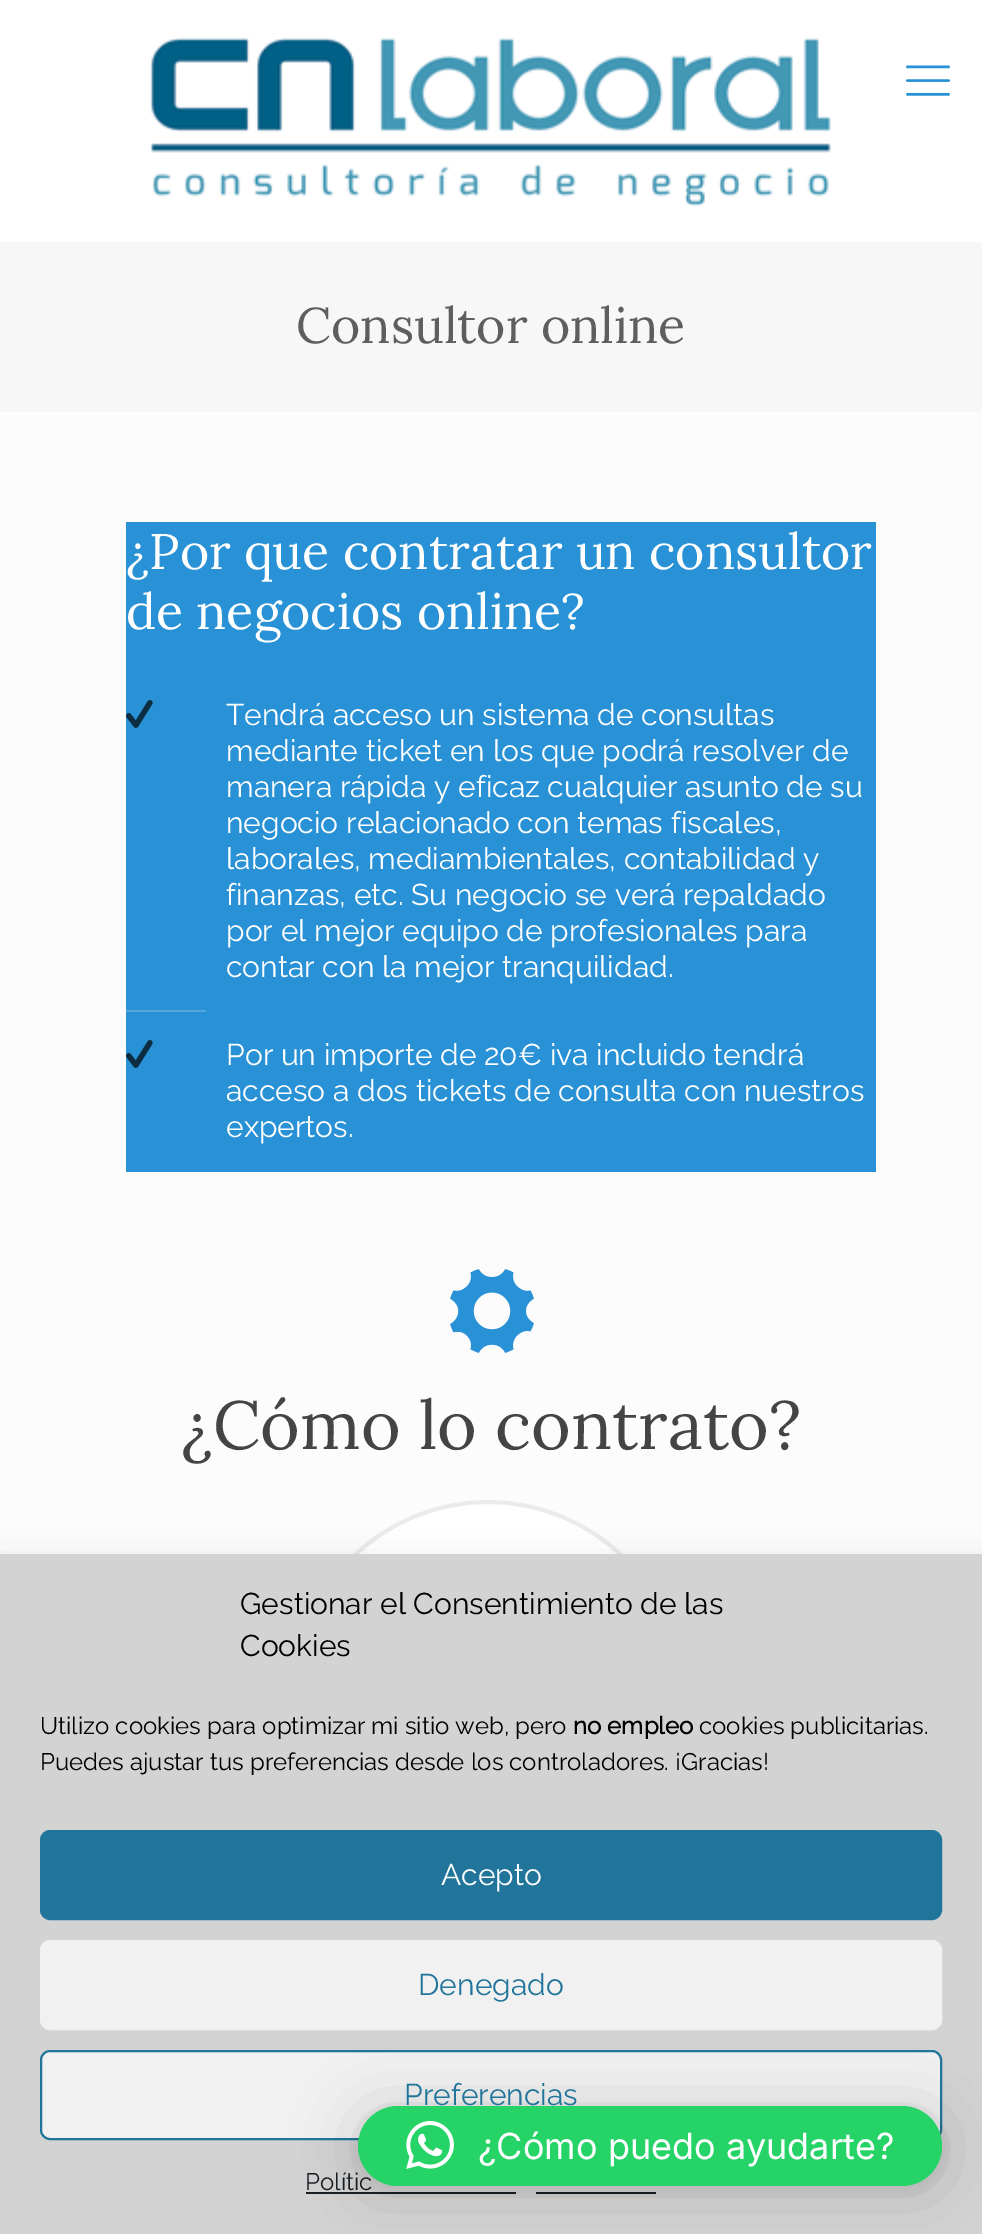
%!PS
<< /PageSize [982 2234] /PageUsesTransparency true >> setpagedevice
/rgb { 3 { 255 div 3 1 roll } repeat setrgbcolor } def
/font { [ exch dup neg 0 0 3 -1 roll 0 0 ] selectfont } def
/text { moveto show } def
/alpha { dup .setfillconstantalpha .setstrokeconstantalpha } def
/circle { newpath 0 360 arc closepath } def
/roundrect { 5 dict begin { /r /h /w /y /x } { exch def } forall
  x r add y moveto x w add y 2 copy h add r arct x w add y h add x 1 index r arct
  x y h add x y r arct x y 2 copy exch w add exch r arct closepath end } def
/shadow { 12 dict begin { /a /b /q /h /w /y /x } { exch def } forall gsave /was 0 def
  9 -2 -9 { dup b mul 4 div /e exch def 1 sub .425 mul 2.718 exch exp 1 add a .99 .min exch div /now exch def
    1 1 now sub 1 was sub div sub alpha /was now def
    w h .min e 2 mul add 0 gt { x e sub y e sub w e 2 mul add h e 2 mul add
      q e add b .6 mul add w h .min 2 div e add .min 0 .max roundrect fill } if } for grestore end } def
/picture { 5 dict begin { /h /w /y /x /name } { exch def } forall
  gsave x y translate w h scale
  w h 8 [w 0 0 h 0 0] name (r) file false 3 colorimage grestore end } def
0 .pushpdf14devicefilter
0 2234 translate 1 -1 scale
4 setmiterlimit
252 252 252 rgb
0 0 982 2234 rectfill
255 255 255 rgb
0 0 982 242 rectfill
(img_01.rgb) 150 37 681 170 picture
(img_02.rgb) 906 65 44 31 picture
247 247 247 rgb
0 242 982 170 rectfill
41 145 214 rgb
126 522 750 650 rectfill
84 167 222 rgb
126 1010 80 2 rectfill
(img_03.rgb) 126 700 27 28 picture
(img_03.rgb) 126 1040 27 28 picture
(img_04.rgb) 450 1269 84 84 picture
255 255 255 rgb
488 1696 194 circle gsave fill grestore
235 235 235 rgb
4 setlinewidth
stroke
0 0 0 rgb
0 1574 982 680 0 20 0.19 shadow
211 211 211 rgb
0 1554 982 680 rectfill
33 117 155 rgb
41 1831 900 88 9 roundrect gsave fill grestore
2 setlinewidth
stroke
241 241 241 rgb
41 1941 900 88 9 roundrect gsave fill grestore
stroke
41 2051 900 88 9 roundrect gsave fill grestore
33 117 155 rgb
stroke
25 30 35 rgb
306 2192 210 2 rectfill
536 2192 120 2 rectfill
0 0 0 rgb
358 2110 584 80 40 32 0.16 shadow
358 2108 584 80 40 6 0.06 shadow
/Lora-Regular 50 font
94 94 94 rgb
(Consultor online) 296 343 text
255 255 255 rgb
(¿Por que contratar un consultor) 126 569 text
(de negocios online?) 126 629 text
/Raleway-Thin 30 font
(Tendrá acceso un sistema de consultas) 226 725 text
(mediante ticket en los que podrá resolver de) 226 761 text
(manera rápida y eficaz cualquier asunto de su) 226 797 text
(negocio relacionado con temas fiscales,) 226 833 text
(laborales, mediambientales, contabilidad y) 226 869 text
(finanzas, etc. Su negocio se verá repaldado) 226 905 text
(por el mejor equipo de profesionales para) 226 941 text
(contar con la mejor tranquilidad.) 226 977 text
(Por un importe de 20€ iva incluido tendrá) 226 1065 text
(acceso a dos tickets de consulta con nuestros) 226 1101 text
(expertos.) 226 1137 text
/Lora-Regular 68 font
68 68 68 rgb
(¿Cómo lo contrato?) 181 1449 text
/Raleway-Thin 30 font
0 0 0 rgb
(Gestionar el Consentimiento de las) 240 1614 text
(Cookies) 240 1656 text
/Raleway-Thin 24 font
(Utilizo cookies para optimizar mi sitio web, pero) 40 1734 text
/Raleway-Bold 24 font
(no empleo) 573 1734 text
/Raleway-Thin 24 font
(cookies publicitarias.) 699 1734 text
(Puedes ajustar tus preferencias desde los controladores. ¡Gracias!) 40 1770 text
/Raleway-Thin 30 font
255 255 255 rgb
(Acepto) 441 1885 text
33 117 155 rgb
(Denegado) 418 1995 text
(Preferencias) 404 2105 text
/Raleway-Thin 24 font
25 30 35 rgb
(Polític) 305 2190 text
37 211 102 rgb
358 2106 584 80 40 roundrect fill
(img_05.rgb) 406 2121 48 48 picture
/Inter-Regular 36 font
255 255 255 rgb
(¿Cómo puedo ayudarte?) 478 2159 text
.poppdf14devicefilter showpage
